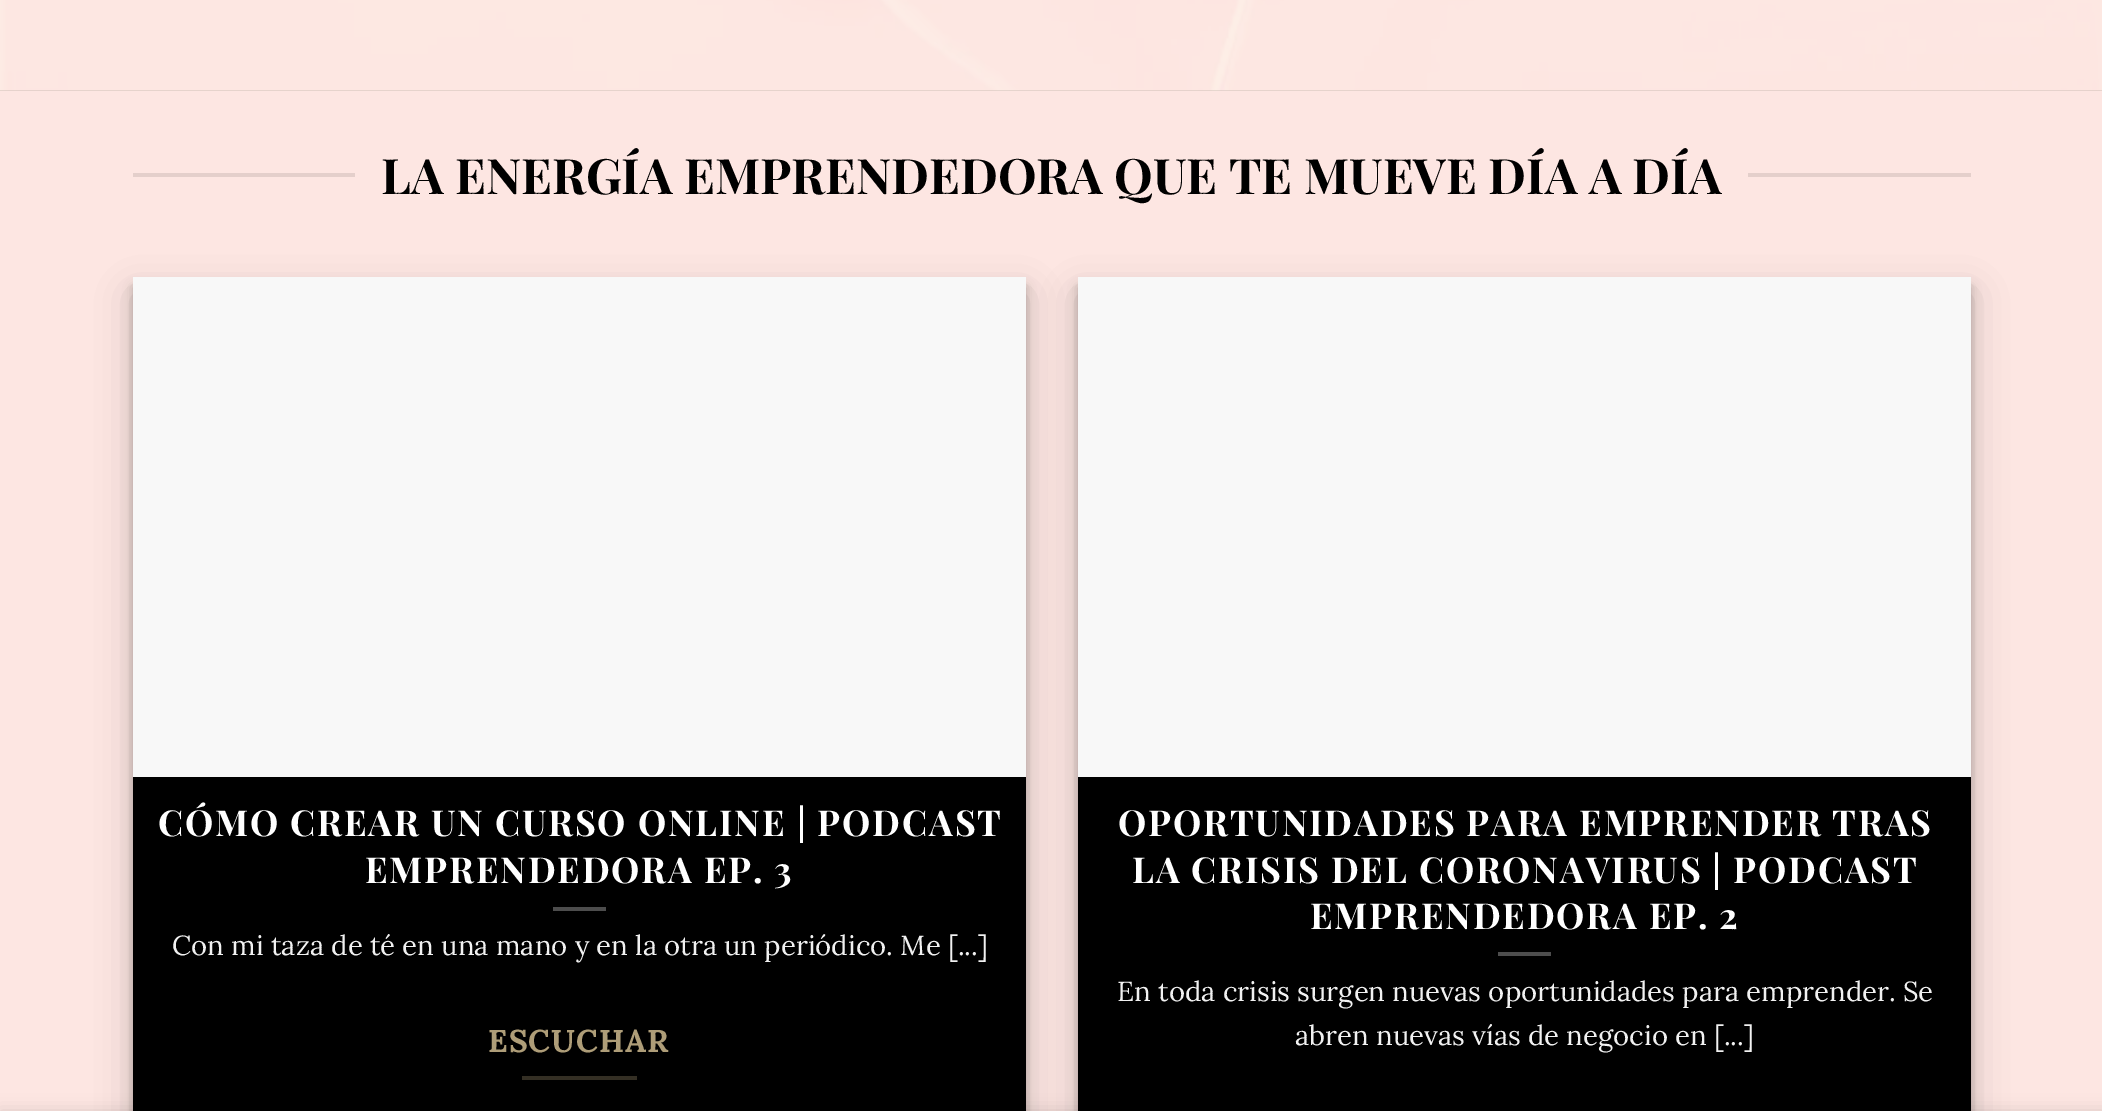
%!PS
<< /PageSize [2102 1111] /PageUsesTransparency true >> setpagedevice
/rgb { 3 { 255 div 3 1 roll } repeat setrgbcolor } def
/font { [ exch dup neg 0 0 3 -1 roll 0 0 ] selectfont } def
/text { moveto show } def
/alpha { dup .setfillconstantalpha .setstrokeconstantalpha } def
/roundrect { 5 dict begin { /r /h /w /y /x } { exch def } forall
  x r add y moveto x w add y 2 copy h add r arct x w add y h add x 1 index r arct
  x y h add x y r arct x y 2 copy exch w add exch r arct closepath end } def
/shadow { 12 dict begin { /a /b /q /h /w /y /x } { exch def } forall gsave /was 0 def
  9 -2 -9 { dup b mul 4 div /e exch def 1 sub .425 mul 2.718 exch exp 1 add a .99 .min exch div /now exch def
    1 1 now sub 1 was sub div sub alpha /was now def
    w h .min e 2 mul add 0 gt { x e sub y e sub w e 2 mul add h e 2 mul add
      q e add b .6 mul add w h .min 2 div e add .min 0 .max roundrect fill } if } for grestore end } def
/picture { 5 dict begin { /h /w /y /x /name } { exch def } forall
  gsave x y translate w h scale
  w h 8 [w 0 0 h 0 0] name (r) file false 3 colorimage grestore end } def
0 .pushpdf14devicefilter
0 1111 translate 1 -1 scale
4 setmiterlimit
200 185 176 rgb
0 0 2102 1111 rectfill
(img_01.rgb) 0 0 2102 91 picture
253 230 226 rgb
0 91 2102 1020 rectfill
228 207 203 rgb
133 173 222 4 rectfill
1748 173 223 4 rectfill
0 0 0 rgb
133 287 893 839 0 5 0.22 shadow
133 294 893 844 0 17.5 0.19 shadow
248 248 248 rgb
133 277 893 500 rectfill
0 0 0 rgb
133 777 893 334 rectfill
77 77 77 rgb
553 907 53 4 rectfill
52 47 36 rgb
522 1076 115 4 rectfill
0 0 0 rgb
1078 287 893 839 0 5 0.22 shadow
1078 294 893 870 0 17.5 0.19 shadow
248 248 248 rgb
1078 277 893 500 rectfill
0 0 0 rgb
1078 777 893 334 rectfill
77 77 77 rgb
1498 952 53 4 rectfill
0 0 0 rgb
0 1111 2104 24 0 8 0.14 shadow
/PlayfairDisplay-Bold 48.8 font
(LA ENERGÍA EMPRENDEDORA QUE TE MUEVE DÍA A DÍA) 381 194 text
/PlayfairDisplay-Bold 35.75 font
255 255 255 rgb
158 836 moveto 1.8 0 (CÓMO CREAR UN CURSO ONLINE | PODCAST) ashow
365 883 moveto 1.8 0 (EMPRENDEDORA EP. 3) ashow
/Lora-Regular 27.5 font
241 241 241 rgb
(Con mi taza de té en una mano y en la otra un periódico. Me [...]) 172 955 text
/Lora-Bold 31.5 font
174 157 120 rgb
488 1052 moveto 1 0 (ESCUCHAR) ashow
/PlayfairDisplay-Bold 35.75 font
255 255 255 rgb
1118 836 moveto 1.8 0 (OPORTUNIDADES PARA EMPRENDER TRAS) ashow
1132 883 moveto 1.8 0 (LA CRISIS DEL CORONAVIRUS | PODCAST) ashow
1310 929 moveto 1.8 0 (EMPRENDEDORA EP. 2) ashow
/Lora-Regular 27.5 font
241 241 241 rgb
(En toda crisis surgen nuevas oportunidades para emprender. Se) 1117 1001 text
(abren nuevas vías de negocio en [...]) 1295 1045 text
.poppdf14devicefilter showpage
